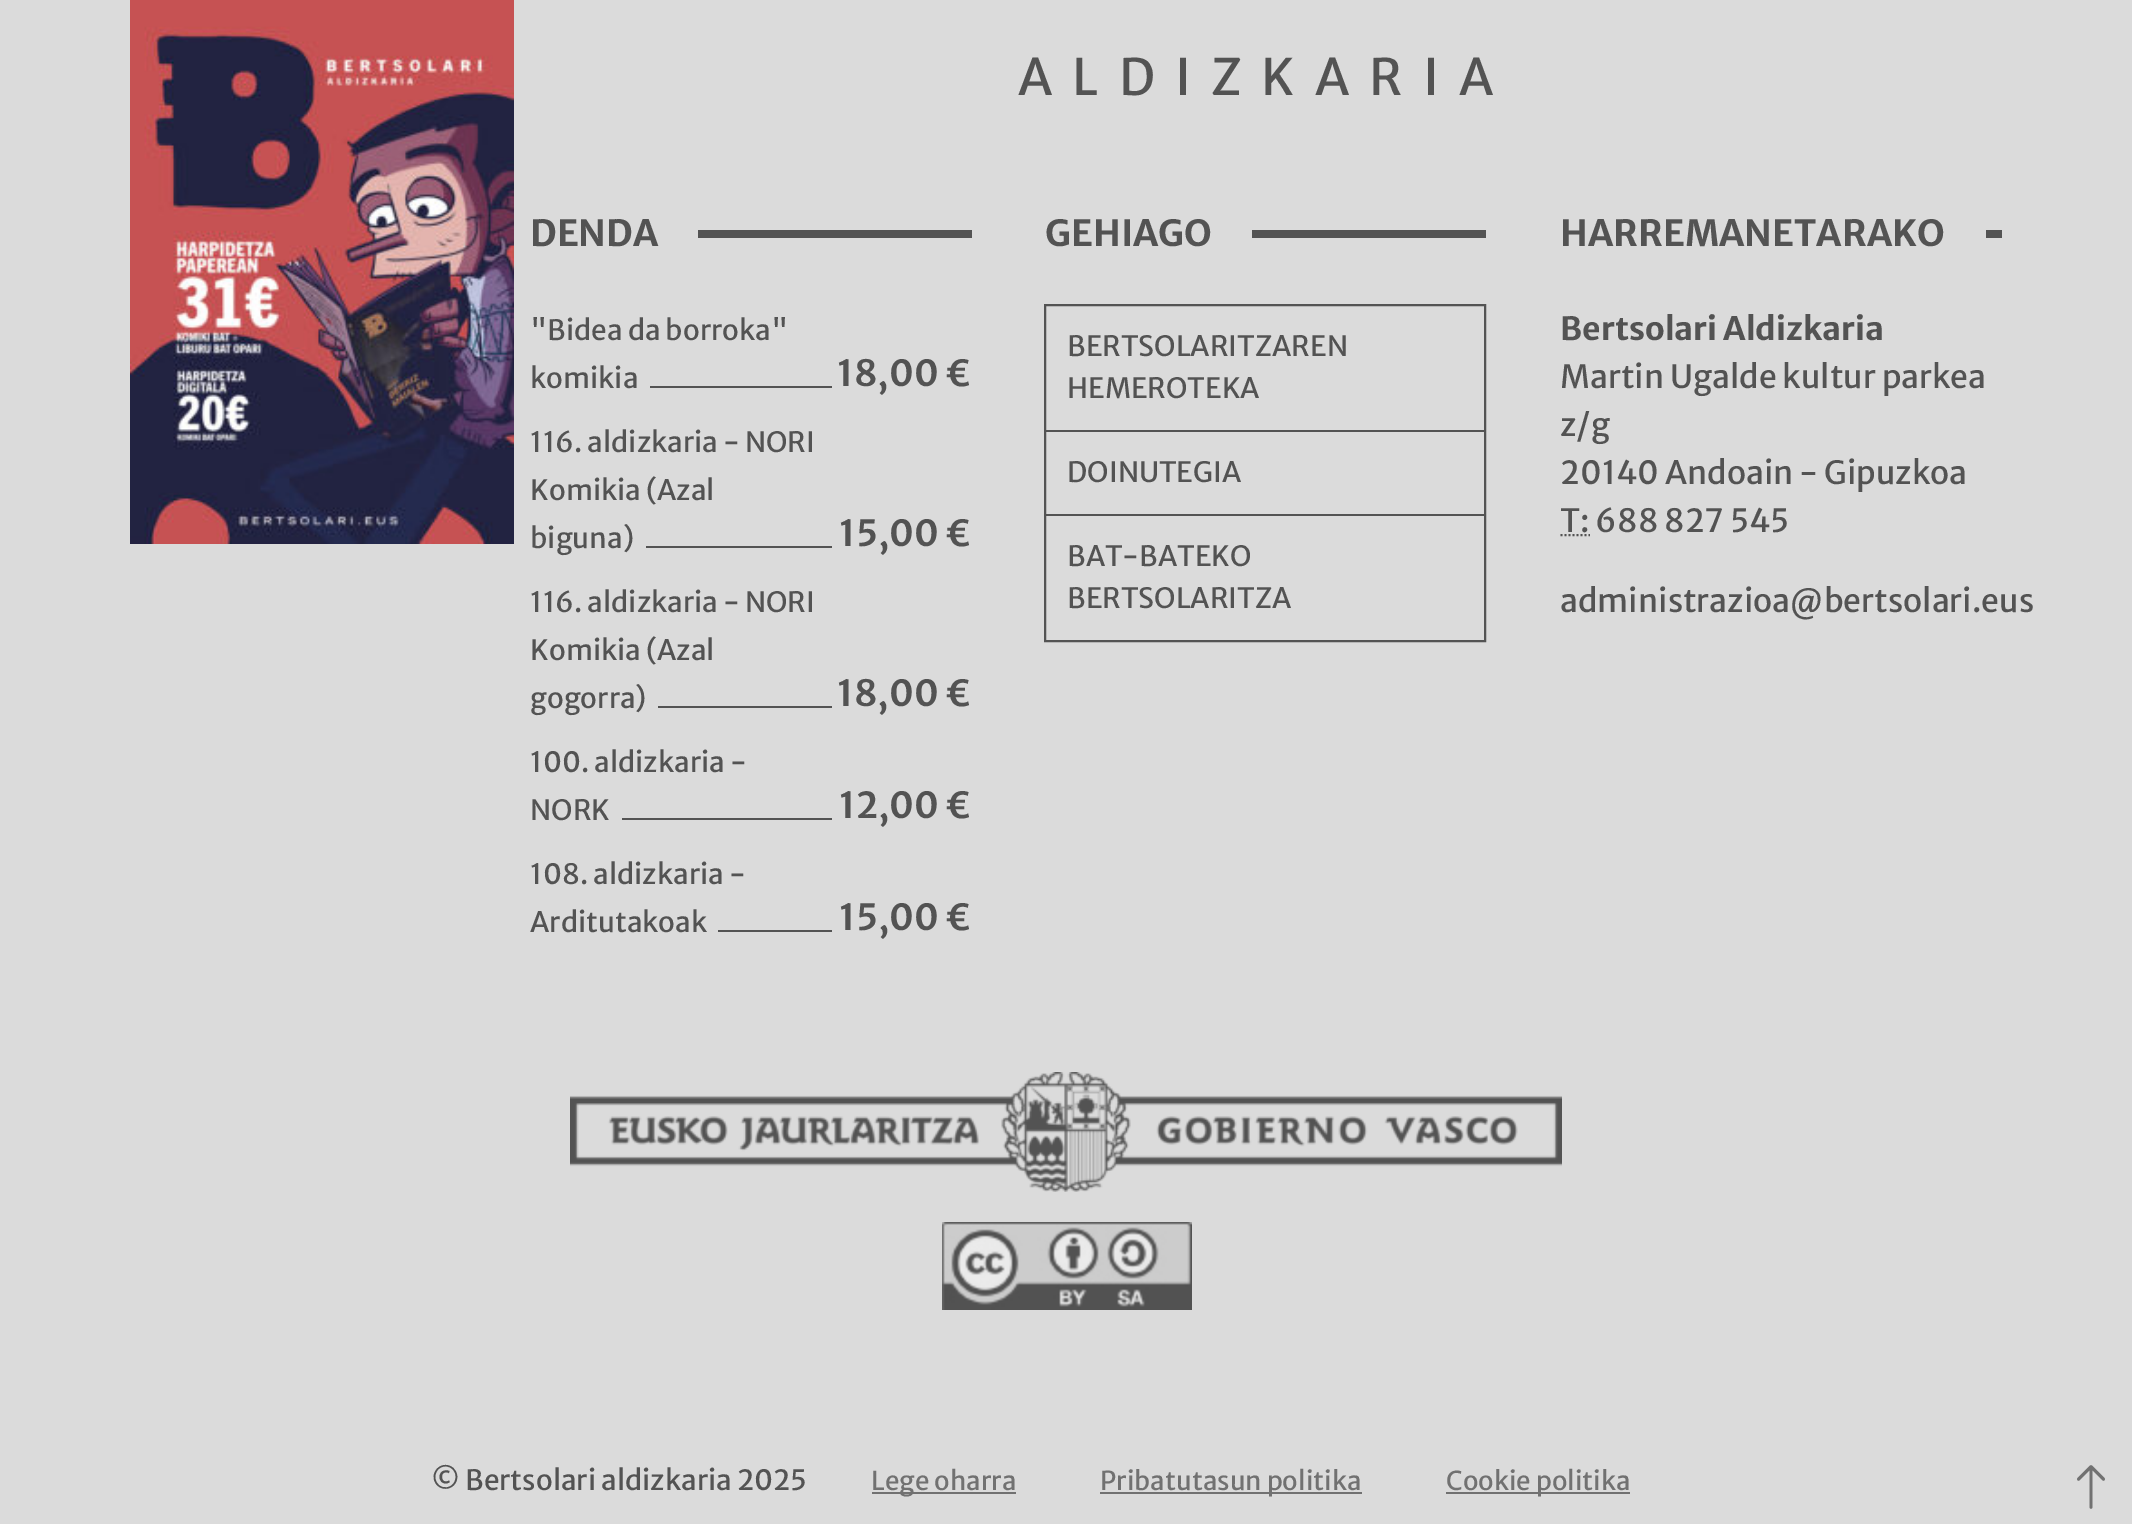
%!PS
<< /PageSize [2132 1524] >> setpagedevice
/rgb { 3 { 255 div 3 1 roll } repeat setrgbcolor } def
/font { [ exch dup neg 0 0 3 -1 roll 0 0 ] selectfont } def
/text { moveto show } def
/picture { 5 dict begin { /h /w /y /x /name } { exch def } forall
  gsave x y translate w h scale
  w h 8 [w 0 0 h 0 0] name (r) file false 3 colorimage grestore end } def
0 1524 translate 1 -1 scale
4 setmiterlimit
219 219 219 rgb
0 0 2132 1524 rectfill
(img_01.rgb) 130 0 384 544 picture
83 83 83 rgb
698 230 274 8 rectfill
650 386 182 2 rectfill
646 546 186 2 rectfill
658 706 174 2 rectfill
622 818 210 2 rectfill
718 930 114 2 rectfill
1252 230 234 8 rectfill
2 setlinewidth
1045 305 440 336 rectstroke
1046 430 438 2 rectfill
1046 514 438 2 rectfill
1986 230 16 8 rectfill
[2 2] 0 setdash
1560.5 535 moveto 29.5 0 rlineto stroke
(img_02.rgb) 570 1072 992 120 picture
(img_03.rgb) 942 1222 250 88 picture
113 113 113 rgb
872 1492 144 2 rectfill
1100 1492 262 2 rectfill
1446 1492 184 2 rectfill
(img_04.rgb) 2077 1465 28 44 picture
/MerriweatherSans-Regular 50 font
83 83 83 rgb
1018 95 moveto 20 0 (ALDIZKARIA) ashow
/MerriweatherSans-Bold 36 font
(DENDA) 530 246 text
/MerriweatherSans-Regular 28 font
("Bidea da borroka") 530 340 text
(komikia) 530 388 text
/MerriweatherSans-SemiBold 36 font
(18,00 €) 837 386 text
/MerriweatherSans-Regular 28 font
(116. aldizkaria - NORI) 530 452 text
(Komikia \(Azal) 530 500 text
(biguna\)) 530 548 text
/MerriweatherSans-SemiBold 36 font
(15,00 €) 839 546 text
/MerriweatherSans-Regular 28 font
(116. aldizkaria - NORI) 530 612 text
(Komikia \(Azal) 530 660 text
(gogorra\)) 530 708 text
/MerriweatherSans-SemiBold 36 font
(18,00 €) 837 706 text
/MerriweatherSans-Regular 28 font
(100. aldizkaria -) 530 772 text
(NORK) 530 820 text
/MerriweatherSans-SemiBold 36 font
(12,00 €) 839 818 text
/MerriweatherSans-Regular 28 font
(108. aldizkaria -) 530 884 text
(Arditutakoak) 530 932 text
/MerriweatherSans-SemiBold 36 font
(15,00 €) 839 930 text
/MerriweatherSans-Bold 36 font
(GEHIAGO) 1045 246 text
/MerriweatherSans-Regular 28 font
(BERTSOLARITZAREN) 1067 356 text
(HEMEROTEKA) 1067 398 text
(DOINUTEGIA) 1067 482 text
(BAT-BATEKO) 1067 566 text
(BERTSOLARITZA) 1067 608 text
/MerriweatherSans-Bold 36 font
(HARREMANETARAKO) 1560 246 text
/MerriweatherSans-Bold 32 font
(Bertsolari Aldizkaria) 1560 340 text
/MerriweatherSans-Regular 32 font
(Martin Ugalde kultur parkea) 1560 388 text
(z/g) 1560 436 text
(20140 Andoain - Gipuzkoa) 1560 484 text
(T: 688 827 545) 1560 532 text
(administrazioa@bertsolari.eus) 1560 612 text
/MerriweatherSans-Regular 28 font
(© Bertsolari aldizkaria 2025) 431 1490 text
/MerriweatherSans-Regular 26 font
113 113 113 rgb
(Lege oharra) 871 1490 text
(Pribatutasun politika) 1100 1490 text
(Cookie politika) 1446 1490 text
showpage
